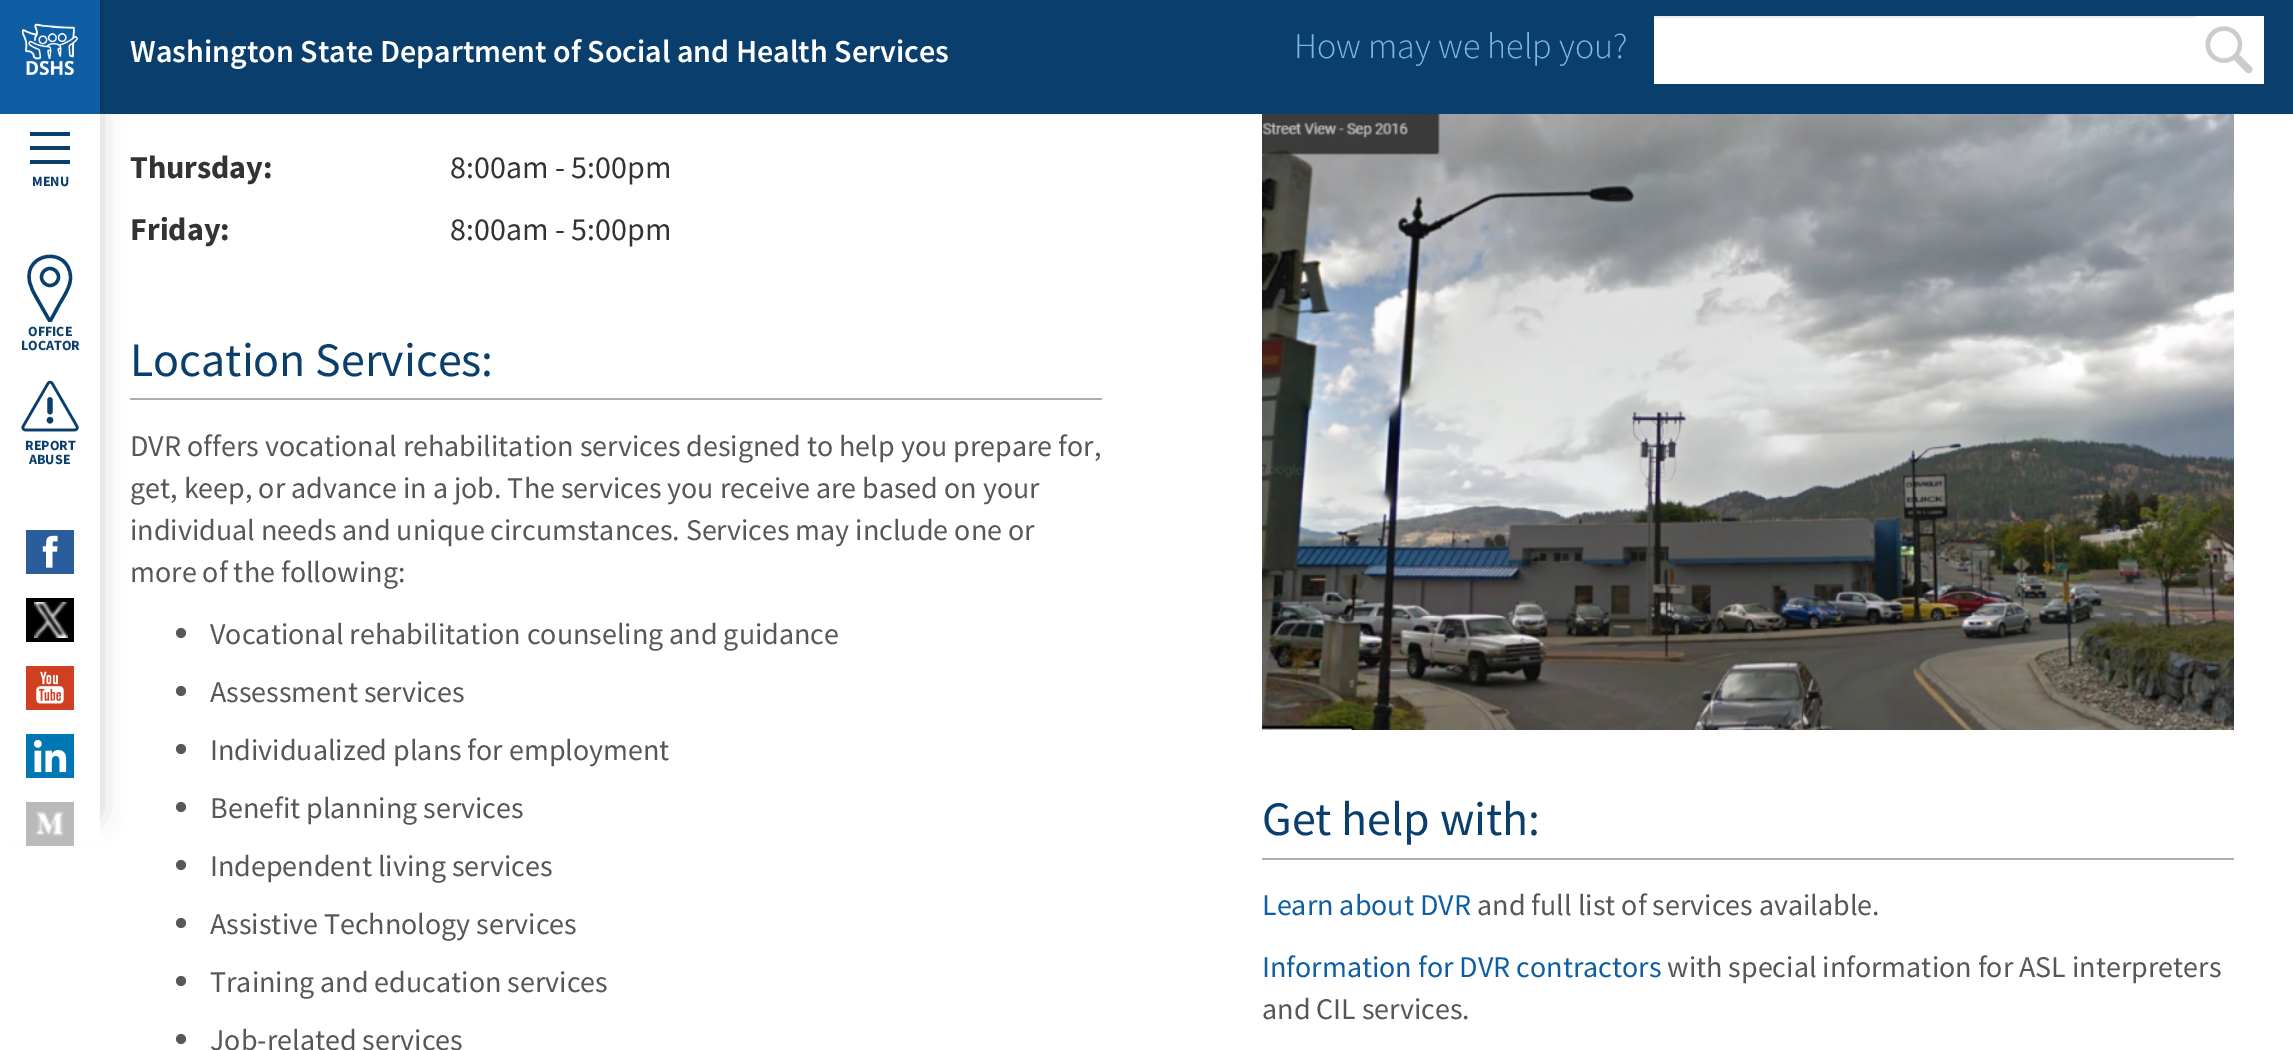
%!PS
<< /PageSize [2293 1050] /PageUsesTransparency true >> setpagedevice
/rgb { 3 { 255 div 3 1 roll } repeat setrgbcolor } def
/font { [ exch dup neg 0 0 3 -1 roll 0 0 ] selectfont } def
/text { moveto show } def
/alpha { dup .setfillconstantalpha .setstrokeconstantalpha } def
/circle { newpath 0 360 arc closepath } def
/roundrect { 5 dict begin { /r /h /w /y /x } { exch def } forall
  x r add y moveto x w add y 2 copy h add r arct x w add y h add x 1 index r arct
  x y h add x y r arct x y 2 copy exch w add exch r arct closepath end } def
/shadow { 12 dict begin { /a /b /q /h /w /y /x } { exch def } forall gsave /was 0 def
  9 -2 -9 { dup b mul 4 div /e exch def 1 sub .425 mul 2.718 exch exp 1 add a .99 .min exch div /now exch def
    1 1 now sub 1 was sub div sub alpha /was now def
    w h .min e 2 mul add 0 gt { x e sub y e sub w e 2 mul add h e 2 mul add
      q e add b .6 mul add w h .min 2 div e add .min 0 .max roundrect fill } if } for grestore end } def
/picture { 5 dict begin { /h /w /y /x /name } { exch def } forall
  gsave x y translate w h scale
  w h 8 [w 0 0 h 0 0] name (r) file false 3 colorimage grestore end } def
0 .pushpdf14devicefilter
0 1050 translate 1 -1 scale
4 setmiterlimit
255 255 255 rgb
0 0 2293 1050 rectfill
174 174 174 rgb
130 398 972 2 rectfill
0 0 0 rgb
24 74 70 740 0 15 0.3 shadow
10 62 109 rgb
100 0 2193 114 rectfill
255 255 255 rgb
0 114 100 727 rectfill
0 0 0 rgb
0 -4 100 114 0 2 0.4 shadow
15 93 163 rgb
0 0 100 114 rectfill
(img_01.rgb) 21 23 57 53 picture
255 255 255 rgb
1654 16 610 68 rectfill
236 236 236 rgb
1654 16 542 2 rectfill
(img_02.rgb) 2205 26 48 48 picture
10 62 109 rgb
30 132 40 4 rectfill
30 146 40 4 rectfill
30 160 40 4 rectfill
gsave
20 252 60 70 rectclip
3.3 setlinewidth
50 321.5 moveto -12.5 -22 rlineto -3.5 -6 -7 -12 -8 -18.5 rcurveto -5.5 -29 39.5 -35 41 -4 rcurveto 0.5 9.5 -6.5 19 -11 27 rcurveto closepath stroke
grestore
3.3 setlinewidth
50 277 8.5 circle stroke
(img_03.rgb) 21 380 58 52 picture
42 93 156 rgb
26 530 48 44 rectfill
(img_04.rgb) 42 535 16 33 picture
0 0 0 rgb
26 598 48 44 rectfill
(img_05.rgb) 34 602 34 36 picture
207 64 34 rgb
26 666 48 44 rectfill
(img_06.rgb) 36 671 28 33 picture
0 119 181 rgb
26 734 48 44 rectfill
(img_07.rgb) 33 739 34 34 picture
186 186 186 rgb
26 802 48 44 rectfill
(img_08.rgb) 35 811 29 25 picture
87 87 87 rgb
181 633 5 circle fill
181 691 5 circle fill
181 749 5 circle fill
181 807 5 circle fill
181 865 5 circle fill
181 923 5 circle fill
181 981 5 circle fill
181 1039 5 circle fill
(img_09.rgb) 1262 114 972 616 picture
174 174 174 rgb
1262 858 972 2 rectfill
/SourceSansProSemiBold-SemiBold 32 font
255 255 255 rgb
(Washington State Department of Social and Health Services) 130 62 text
/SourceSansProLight-Light 36 font
119 187 219 rgb
(How may we help you?) 1294 58 text
/SourceSansPro-Bold 14 font
10 62 109 rgb
(MENU) 32 186 text
(OFFICE) 28 336 text
(LOCATOR) 21 350 text
(REPORT) 25 450 text
(ABUSE) 29 464 text
/SourceSansPro-Bold 32 font
51 51 51 rgb
(Thursday:) 130 178 text
/SourceSansPro-Regular 32 font
(8:00am - 5:00pm) 450 178 text
/SourceSansPro-Bold 32 font
(Friday:) 130 240 text
/SourceSansPro-Regular 32 font
(8:00am - 5:00pm) 450 240 text
/SourceSansPro-Regular 48 font
10 62 109 rgb
(Location Services:) 130 376 text
/SourceSansPro-Regular 30 font
87 87 87 rgb
(DVR offers vocational rehabilitation services designed to help you prepare for,) 130 456 text
(get, keep, or advance in a job. The services you receive are based on your) 130 498 text
(individual needs and unique circumstances. Services may include one or) 130 540 text
(more of the following:) 130 582 text
(Vocational rehabilitation counseling and guidance) 210 644 text
(Assessment services) 210 702 text
(Individualized plans for employment) 210 760 text
(Benefit planning services) 210 818 text
(Independent living services) 210 876 text
(Assistive Technology services) 210 934 text
(Training and education services) 210 992 text
(Job-related services) 210 1050 text
/SourceSansPro-Regular 48 font
10 62 109 rgb
(Get help with:) 1262 835 text
/SourceSansPro-Regular 30 font
15 93 163 rgb
(Learn about DVR) 1262 915 text
87 87 87 rgb
(and full list of services available.) 1477 915 text
15 93 163 rgb
(Information for DVR contractors) 1262 977 text
87 87 87 rgb
(with special information for ASL interpreters) 1667 977 text
(and CIL services.) 1262 1019 text
.poppdf14devicefilter showpage
